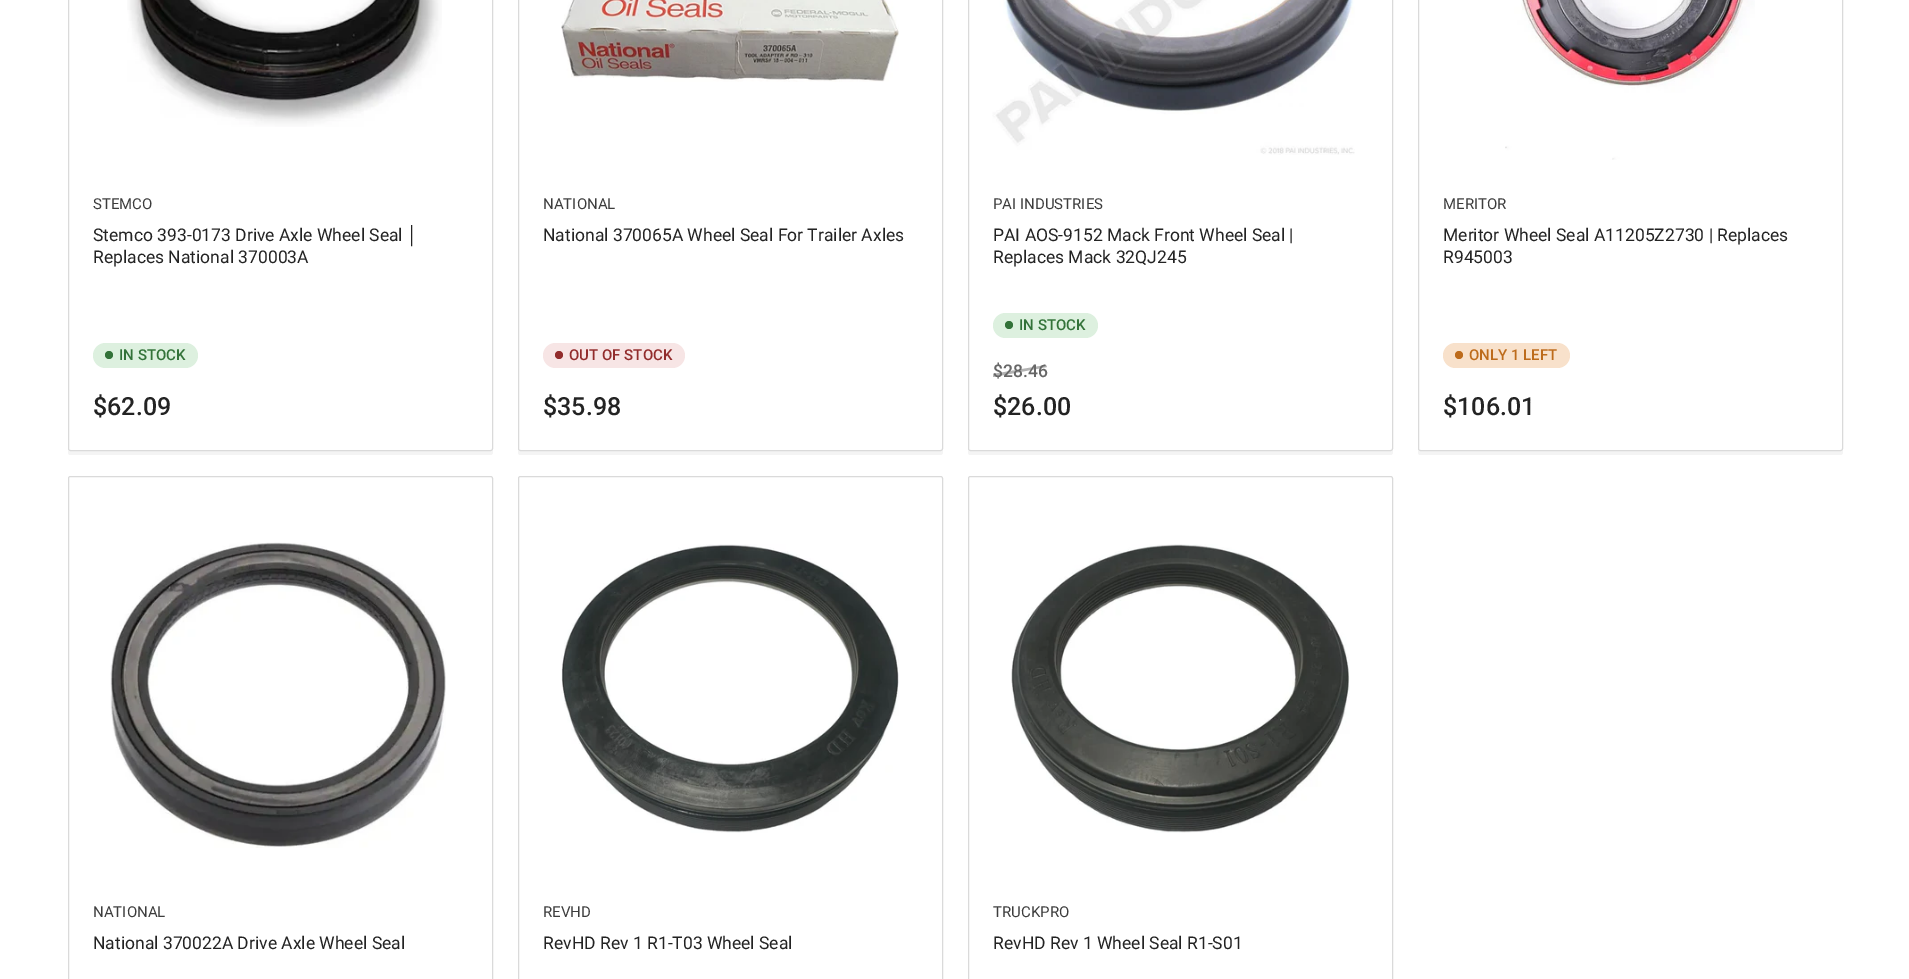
%!PS
<< /PageSize [1909 979] /PageUsesTransparency true >> setpagedevice
/rgb { 3 { 255 div 3 1 roll } repeat setrgbcolor } def
/font { [ exch dup neg 0 0 3 -1 roll 0 0 ] selectfont } def
/text { moveto show } def
/alpha { dup .setfillconstantalpha .setstrokeconstantalpha } def
/circle { newpath 0 360 arc closepath } def
/roundrect { 5 dict begin { /r /h /w /y /x } { exch def } forall
  x r add y moveto x w add y 2 copy h add r arct x w add y h add x 1 index r arct
  x y h add x y r arct x y 2 copy exch w add exch r arct closepath end } def
/picture { 5 dict begin { /h /w /y /x /name } { exch def } forall
  gsave x y translate w h scale
  w h 8 [w 0 0 h 0 0] name (r) file false 3 colorimage grestore end } def
0 .pushpdf14devicefilter
0 979 translate 1 -1 scale
4 setmiterlimit
255 255 255 rgb
0 0 1909 979 rectfill
244 244 244 rgb
68 450 moveto 0 2 rlineto 0 2 1 3 2 3 rcurveto 420 0 rlineto 2 0 3 -1 3 -3 rcurveto 0 -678 rlineto -1 -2 rlineto 0 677 rlineto 0 1 -1 2 -2 2 rcurveto -420 0 rlineto -1 0 -2 0 -2 -1 rcurveto closepath fill
255 255 255 rgb
68.5 -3.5 424 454 2 roundrect gsave fill grestore
218 218 218 rgb
stroke
(img_01.rgb) 127 0 315 127 picture
221 240 223 rgb
93 343 105 25 12.5 roundrect fill
51 114 57 rgb
109 355 4 circle fill
244 244 244 rgb
518 450 moveto 0 2 rlineto 0 2 1 3 2 3 rcurveto 420 0 rlineto 2 0 3 -1 3 -3 rcurveto 0 -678 rlineto -1 -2 rlineto 0 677 rlineto 0 1 -1 2 -2 2 rcurveto -420 0 rlineto -1 0 -2 0 -2 -1 rcurveto closepath fill
255 255 255 rgb
518.5 -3.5 424 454 2 roundrect gsave fill grestore
218 218 218 rgb
stroke
(img_02.rgb) 561 0 338 82 picture
247 229 229 rgb
543 343 142 25 12.5 roundrect fill
146 44 44 rgb
559 355 4 circle fill
244 244 244 rgb
968 450 moveto 0 2 rlineto 0 2 1 3 2 3 rcurveto 420 0 rlineto 2 0 3 -1 3 -3 rcurveto 0 -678 rlineto -1 -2 rlineto 0 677 rlineto 0 1 -1 2 -2 2 rcurveto -420 0 rlineto -1 0 -2 0 -2 -1 rcurveto closepath fill
255 255 255 rgb
968.5 -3.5 424 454 2 roundrect gsave fill grestore
218 218 218 rgb
stroke
(img_03.rgb) 992 0 363 155 picture
221 240 223 rgb
993 313 105 25 12.5 roundrect fill
51 114 57 rgb
1009 325 4 circle fill
244 244 244 rgb
1418 450 moveto 0 2 rlineto 0 2 1 3 2 3 rcurveto 420 0 rlineto 2 0 3 -1 3 -3 rcurveto 0 -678 rlineto -1 -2 rlineto 0 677 rlineto 0 1 -1 2 -2 2 rcurveto -420 0 rlineto -1 0 -2 0 -2 -1 rcurveto closepath fill
255 255 255 rgb
1418.5 -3.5 424 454 2 roundrect gsave fill grestore
218 218 218 rgb
stroke
(img_04.rgb) 1505 0 250 160 picture
248 225 203 rgb
1443 343 127 25 12.5 roundrect fill
189 107 27 rgb
1459 355 4 circle fill
218 218 218 rgb
68.5 476.5 424 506 2 roundrect stroke
(img_05.rgb) 110 542 336 306 picture
518.5 476.5 424 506 2 roundrect stroke
(img_06.rgb) 561 544 338 289 picture
968.5 476.5 424 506 2 roundrect stroke
(img_07.rgb) 1011 544 339 289 picture
/Roboto-Regular 15 font
61 61 61 rgb
(STEMCO) 93 209 text
/Roboto-Regular 17.5 font
35 35 35 rgb
(Stemco 393-0173 Drive Axle Wheel Seal) 93 241 text
/LiberationSans-Regular 17.5 font
(│) 407 241 text
/Roboto-Regular 17.5 font
(Replaces National 370003A) 93 263 text
/Roboto-Medium 15 font
51 114 57 rgb
(IN STOCK) 119 360 text
/Roboto-Medium 25 font
35 35 35 rgb
($62.09) 93 415 text
/Roboto-Regular 15 font
61 61 61 rgb
(NATIONAL) 543 209 text
/Roboto-Regular 17.5 font
35 35 35 rgb
(National 370065A Wheel Seal For Trailer Axles) 543 241 text
/Roboto-Medium 15 font
146 44 44 rgb
(OUT OF STOCK) 569 360 text
/Roboto-Medium 25 font
35 35 35 rgb
($35.98) 543 415 text
/Roboto-Regular 15 font
61 61 61 rgb
(PAI INDUSTRIES) 993 209 text
/Roboto-Regular 17.5 font
35 35 35 rgb
(PAI AOS-9152 Mack Front Wheel Seal |) 993 241 text
(Replaces Mack 32QJ245) 993 263 text
/Roboto-Medium 15 font
51 114 57 rgb
(IN STOCK) 1019 330 text
/Roboto-Medium 17.5 font
103 103 103 rgb
($28.46) 993 377 text
0.5 alpha
993 374 moveto 53 -9 rlineto 1 2 rlineto -54 10 rlineto closepath fill
/Roboto-Medium 25 font
1 alpha
35 35 35 rgb
($26.00) 993 415 text
/Roboto-Regular 15 font
61 61 61 rgb
(MERITOR) 1443 209 text
/Roboto-Regular 17.5 font
35 35 35 rgb
(Meritor Wheel Seal A11205Z2730 | Replaces) 1443 241 text
(R945003) 1443 263 text
/Roboto-Medium 15 font
189 107 27 rgb
(ONLY 1 LEFT) 1469 360 text
/Roboto-Medium 25 font
35 35 35 rgb
($106.01) 1443 415 text
/Roboto-Regular 15 font
61 61 61 rgb
(NATIONAL) 93 917 text
/Roboto-Regular 17.5 font
35 35 35 rgb
(National 370022A Drive Axle Wheel Seal) 93 949 text
/Roboto-Regular 15 font
61 61 61 rgb
(REVHD) 543 917 text
/Roboto-Regular 17.5 font
35 35 35 rgb
(RevHD Rev 1 R1-T03 Wheel Seal) 543 949 text
/Roboto-Regular 15 font
61 61 61 rgb
(TRUCKPRO) 993 917 text
/Roboto-Regular 17.5 font
35 35 35 rgb
(RevHD Rev 1 Wheel Seal R1-S01) 993 949 text
.poppdf14devicefilter showpage
